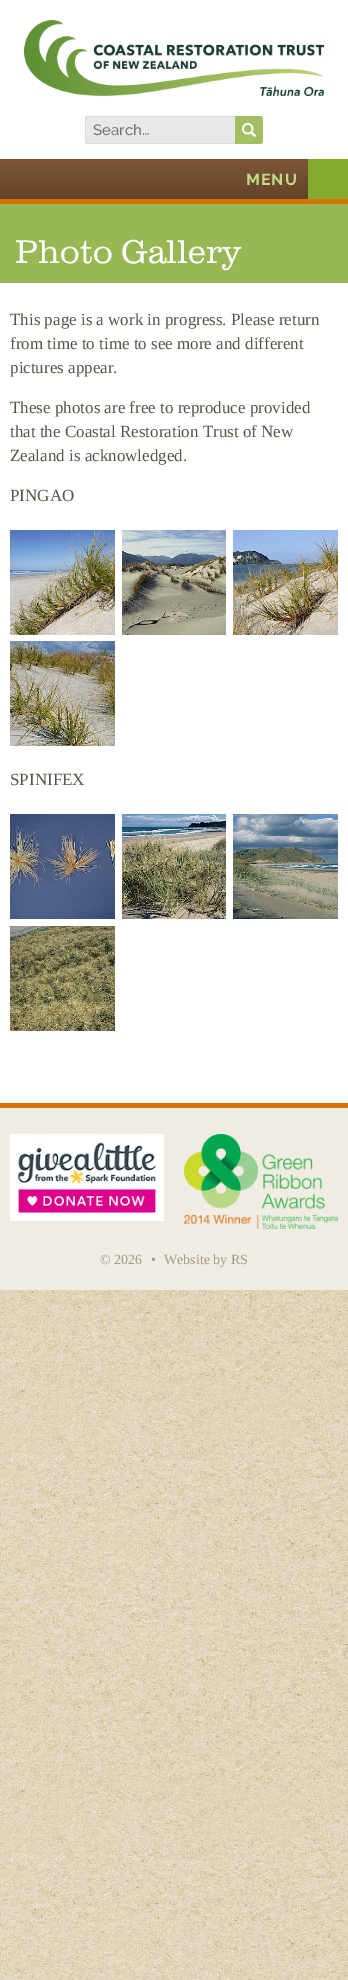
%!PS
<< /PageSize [348 1980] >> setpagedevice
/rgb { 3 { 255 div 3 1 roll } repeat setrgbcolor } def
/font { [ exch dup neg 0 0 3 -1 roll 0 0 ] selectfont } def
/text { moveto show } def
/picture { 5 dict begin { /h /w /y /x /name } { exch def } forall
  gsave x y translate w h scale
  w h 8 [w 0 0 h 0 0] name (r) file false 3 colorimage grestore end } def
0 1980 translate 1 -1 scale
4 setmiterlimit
255 255 255 rgb
0 0 348 1980 rectfill
(img_01.rgb) 0 1290 348 690 picture
212 115 0 rgb
0 199 348 5 rectfill
(img_02.rgb) 24 20 300 76 picture
232 232 232 rgb
88 116 moveto 147 0 rlineto 0 28 rlineto -147 0 rlineto -1.5 0 -3 -1.5 -3 -3 rcurveto 0 -22 rlineto 0 -1.5 1.5 -3 3 -3 rcurveto closepath fill
218 218 218 rgb
88 116 moveto 147 0 rlineto 0 28 rlineto -147 0 rlineto -2 0 -3 -1 -3 -3 rcurveto 0 -22 rlineto 0 -2 1 -3 3 -3 rcurveto closepath 88 117 moveto 147 0 rlineto 0 26 rlineto -147 0 rlineto -1 0 -2 -1 -2 -2 rcurveto 0 -22 rlineto 0 -1 1 -2 2 -2 rcurveto closepath eofill
163 191 97 rgb
235 116 moveto 25 0 rlineto 1.5 0 3 1.5 3 3 rcurveto 0 22 rlineto 0 1.5 -1.5 3 -3 3 rcurveto -25 0 rlineto closepath fill
(img_03.rgb) 242 123 14 14 picture
gsave 0 159 moveto 308 0 rlineto 0 39 rlineto -308 0 rlineto closepath clip newpath
<< /ShadingType 2 /ColorSpace /DeviceRGB /Coords [174 159 174 199] /Extend [true true] /Function << /FunctionType 2 /Domain [0 1] /C0 [0.494 0.337 0.216] /C1 [0.388 0.263 0.157] /N 1 >> >> shfill grestore
89 60 36 rgb
0 198 308 1 rectfill
132 171 46 rgb
308 159 40 40 rectfill
152 183 85 rgb
0 204 348 79 rectfill
(img_04.rgb) 10 530 105 105 picture
(img_05.rgb) 122 530 104 105 picture
(img_06.rgb) 233 530 105 105 picture
(img_07.rgb) 10 641 105 105 picture
(img_08.rgb) 10 814 105 105 picture
(img_09.rgb) 122 814 104 105 picture
(img_10.rgb) 233 814 105 105 picture
(img_11.rgb) 10 926 105 105 picture
240 236 228 rgb
0 1108 348 182 rectfill
212 115 0 rgb
0 1103 348 5 rectfill
(img_12.rgb) 10 1134 154 87 picture
(img_13.rgb) 184 1134 154 95 picture
/Raleway-Medium 15 font
117 117 117 rgb
(Search…) 93 135 text
/Raleway-Bold 16 font
193 220 135 rgb
246 185 moveto 1 0 (MENU) ashow
/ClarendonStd-Light 34 font
255 255 255 rgb
(Photo Gallery) 15 263 text
/LiberationSerif-Regular 17 font
90 84 72 rgb
(This page is a work in progress. Please return) 10 325 text
(from time to time to see more and different) 10 349 text
(pictures appear.) 10 373 text
(These photos are free to reproduce provided) 10 413 text
(that the Coastal Restoration Trust of New) 10 437 text
(Zealand is acknowledged.) 10 461 text
(PINGAO) 10 501 text
(SPINIFEX) 10 785 text
/LiberationSerif-Regular 14 font
160 153 140 rgb
(© 2026) 100 1264 text
(•) 151 1264 text
(Website by RS) 164 1264 text
showpage
